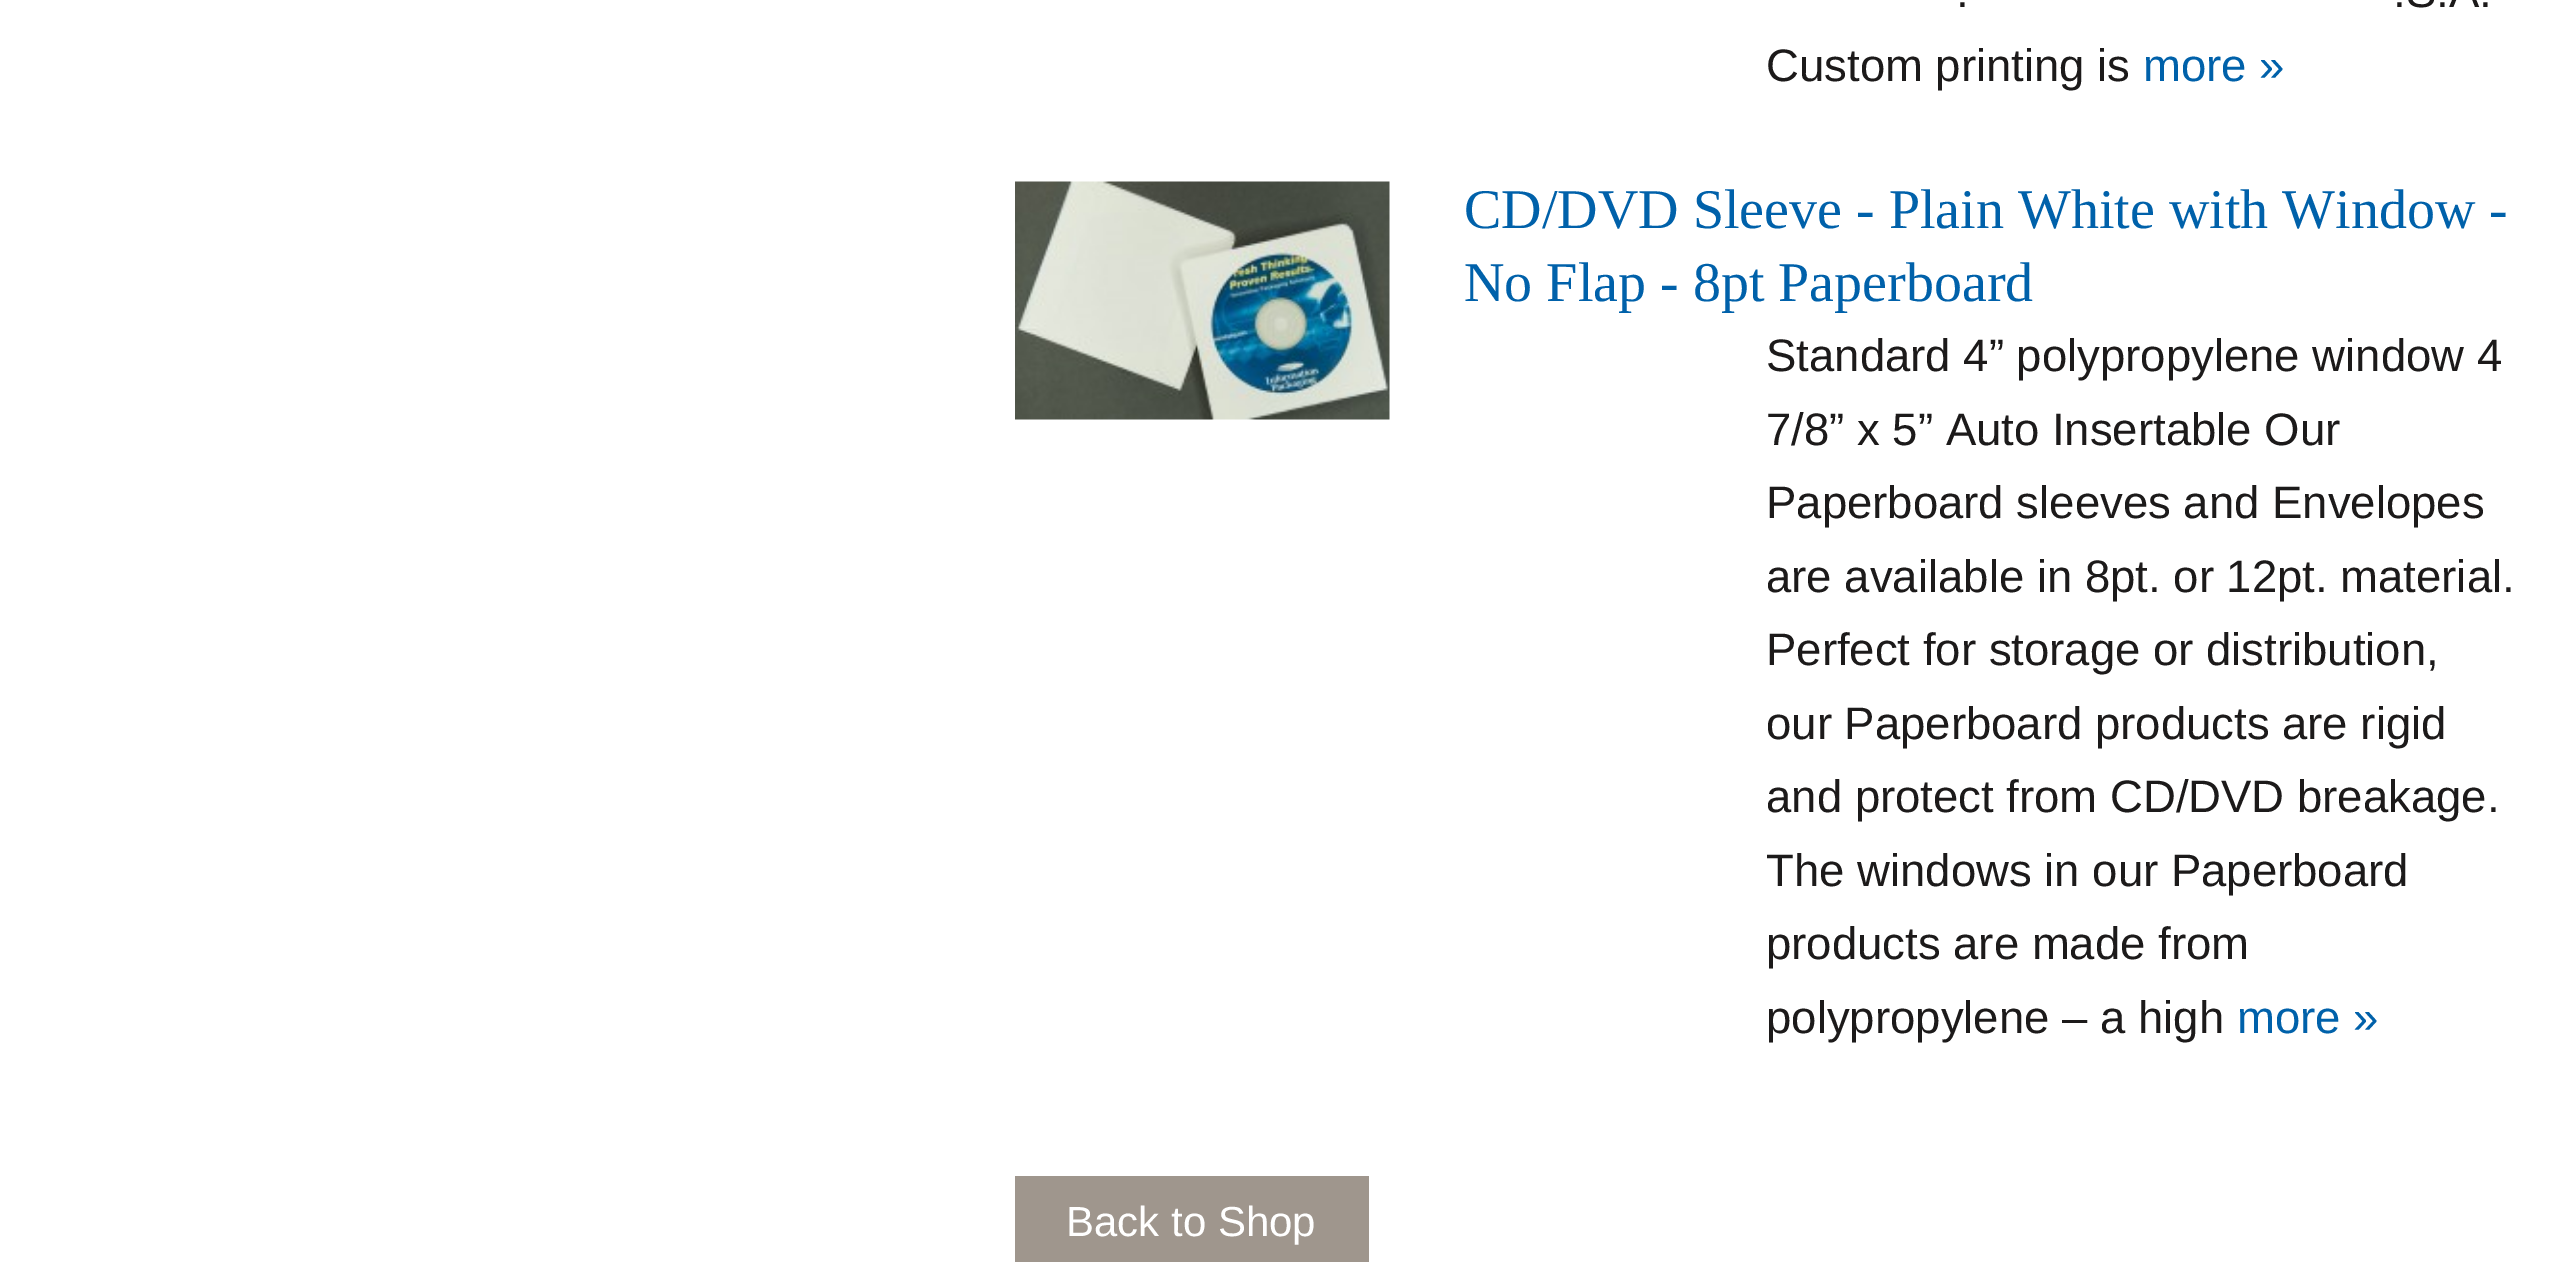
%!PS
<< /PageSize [2567 1262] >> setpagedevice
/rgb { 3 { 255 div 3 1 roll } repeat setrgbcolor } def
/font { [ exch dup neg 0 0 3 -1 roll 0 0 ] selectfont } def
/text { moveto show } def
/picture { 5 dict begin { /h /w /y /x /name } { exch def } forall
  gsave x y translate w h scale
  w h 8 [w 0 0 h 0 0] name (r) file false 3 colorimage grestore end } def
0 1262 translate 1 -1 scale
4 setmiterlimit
255 255 255 rgb
0 0 2567 1262 rectfill
(img_01.rgb) 1015 181 375 239 picture
159 150 141 rgb
1015 1176 354 86 rectfill
/LiberationSans-Regular 45.5 font
28 26 26 rgb
(.) 1956 7 text
(.S.A.) 2393 7 text
(Custom printing is) 1766 81 text
0 97 170 rgb
(more ») 2143 81 text
/LiberationSerif-Regular 56 font
(CD/DVD Sleeve - Plain White with Window -) 1464 228 text
(No Flap - 8pt Paperboard) 1464 301 text
/LiberationSans-Regular 45.5 font
28 26 26 rgb
(Standard 4” polypropylene window 4) 1766 371 text
(7/8” x 5” Auto Insertable Our) 1766 445 text
(Paperboard sleeves and Envelopes) 1766 518 text
(are available in 8pt. or 12pt. material.) 1766 592 text
(Perfect for storage or distribution,) 1766 665 text
(our Paperboard products are rigid) 1766 739 text
(and protect from CD/DVD breakage.) 1766 812 text
(The windows in our Paperboard) 1766 886 text
(products are made from) 1766 959 text
(polypropylene – a high) 1766 1033 text
0 97 170 rgb
(more ») 2237 1033 text
/LiberationSans-Regular 42 font
255 255 255 rgb
(Back to Shop) 1066 1236 text
showpage
